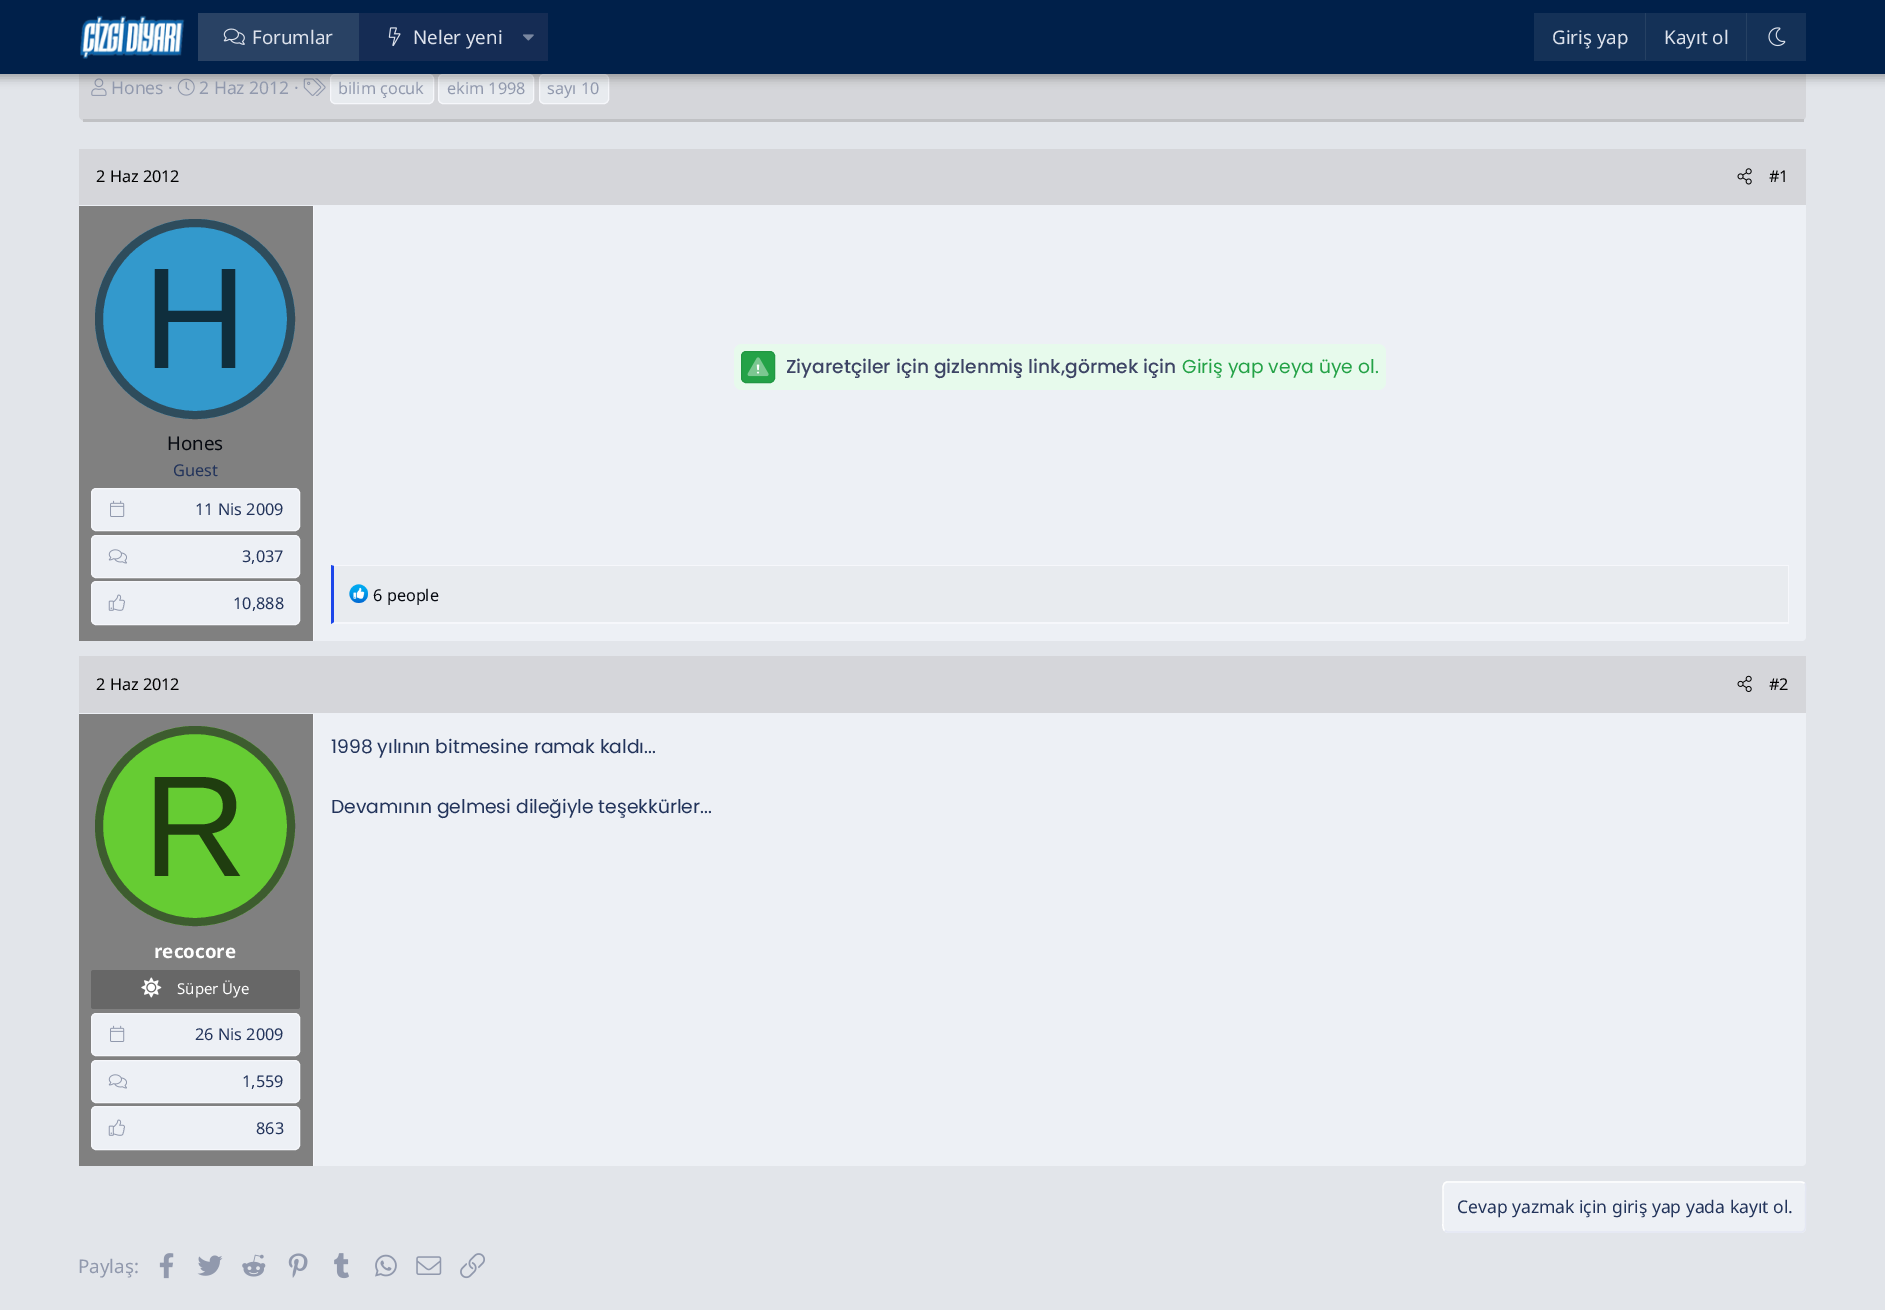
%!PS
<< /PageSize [1885 1310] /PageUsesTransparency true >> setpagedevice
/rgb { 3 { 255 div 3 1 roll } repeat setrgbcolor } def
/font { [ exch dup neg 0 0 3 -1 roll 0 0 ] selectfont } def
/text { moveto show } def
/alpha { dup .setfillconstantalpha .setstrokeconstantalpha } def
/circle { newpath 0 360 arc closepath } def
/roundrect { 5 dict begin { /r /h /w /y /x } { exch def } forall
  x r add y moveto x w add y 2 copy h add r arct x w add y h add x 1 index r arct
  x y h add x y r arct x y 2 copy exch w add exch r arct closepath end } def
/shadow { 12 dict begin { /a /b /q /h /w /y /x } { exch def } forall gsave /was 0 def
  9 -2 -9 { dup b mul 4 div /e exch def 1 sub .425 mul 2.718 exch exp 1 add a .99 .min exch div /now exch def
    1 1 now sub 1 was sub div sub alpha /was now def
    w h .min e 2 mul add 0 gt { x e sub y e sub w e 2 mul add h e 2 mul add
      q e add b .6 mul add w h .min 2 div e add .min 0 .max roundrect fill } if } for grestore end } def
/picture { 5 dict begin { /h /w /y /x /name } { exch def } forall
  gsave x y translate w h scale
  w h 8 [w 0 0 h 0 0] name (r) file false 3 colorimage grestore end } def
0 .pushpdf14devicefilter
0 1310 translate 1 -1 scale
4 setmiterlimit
226 229 234 rgb
0 0 1885 1310 rectfill
213 214 218 rgb
79 24 1727 97 6 roundrect fill
(img_06.rgb) 91 78 16 18 picture
(img_07.rgb) 177 78 18 18 picture
(img_08.rgb) 303 78 23 18 picture
232 235 239 rgb
330.5 74.5 103 29 4.5 roundrect gsave fill grestore
246 247 251 rgb
stroke
232 235 239 rgb
438.5 74.5 95 29 4.5 roundrect gsave fill grestore
246 247 251 rgb
stroke
232 235 239 rgb
539.5 74.5 69 29 4.5 roundrect gsave fill grestore
246 247 251 rgb
stroke
0 0 0 rgb
-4 -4 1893 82 0 5 0.3 shadow
0 32 74 rgb
0 0 1885 74 rectfill
(img_01.rgb) 80 15 105 44 picture
41 66 100 rgb
198 13 161 48 rectfill
(img_02.rgb) 223 28 22 17 picture
21 44 84 rgb
359 13 189 48 rectfill
(img_03.rgb) 388 27 13 20 picture
(img_04.rgb) 523 34 11 7 picture
20 49 87 rgb
1534 13 272 48 rectfill
38 65 99 rgb
1645 13 1 47 rectfill
1746 13 1 48 rectfill
(img_05.rgb) 1768 27 18 20 picture
192 193 196 rgb
83 119 1721 3 rectfill
213 214 218 rgb
79 149 1727 56 rectfill
237 240 245 rgb
79 205 1727 1 rectfill
(img_09.rgb) 1737 168 15 17 picture
246 247 251 rgb
313 206 1 435 rectfill
128 128 128 rgb
79 206 234 435 rectfill
51 153 204 rgb
195 319 100 circle fill
0.7 alpha
44 44 45 rgb
8 setlinewidth
195 319 96 circle stroke
1 alpha
237 240 245 rgb
91.5 488.5 208 42 4.5 roundrect gsave fill grestore
246 247 251 rgb
1 setlinewidth
stroke
(img_10.rgb) 110 500 15 17 picture
237 240 245 rgb
91.5 535.5 208 42 4.5 roundrect gsave fill grestore
246 247 251 rgb
stroke
(img_11.rgb) 108 549 19 15 picture
237 240 245 rgb
91.5 581.5 208 43 4.5 roundrect gsave fill grestore
246 247 251 rgb
stroke
(img_12.rgb) 108 594 17 17 picture
237 240 245 rgb
314 206 moveto 1492 0 rlineto 0 431 rlineto 0 2 -2 4 -4 4 rcurveto -1488 0 rlineto closepath fill
231 250 236 rgb
734 344 652 46 8 roundrect fill
36 162 71 rgb
741.5 351.5 33 31 4.5 roundrect gsave fill grestore
34 151 67 rgb
stroke
(img_14.rgb) 756 364 4 10 picture
(img_13.rgb) 747 357 22 20 picture
232 235 239 rgb
334 566 1454 56 rectfill
246 247 251 rgb
331 565 moveto 1458 0 rlineto -1 1 rlineto -1454 0 rlineto closepath fill
1788 565 1 59 rectfill
1789 624 moveto -1458 0 rlineto 3 -2 rlineto 1454 0 rlineto closepath fill
28 70 234 rgb
331 624 moveto 0 -59 rlineto 3 1 rlineto 0 56 rlineto closepath fill
(img_15.rgb) 349 584 19 19 picture
213 214 218 rgb
79 656 1727 57 rectfill
237 240 245 rgb
79 713 1727 1 rectfill
(img_16.rgb) 1737 675 15 17 picture
246 247 251 rgb
313 714 1 452 rectfill
128 128 128 rgb
79 714 234 452 rectfill
102 204 51 rgb
195 826 100 circle fill
0.7 alpha
44 44 45 rgb
8 setlinewidth
195 826 96 circle stroke
1 alpha
103 103 103 rgb
91 970 209 39 2.5 roundrect fill
(img_17.rgb) 141 977 21 21 picture
237 240 245 rgb
91.5 1013.5 208 42 4.5 roundrect gsave fill grestore
246 247 251 rgb
1 setlinewidth
stroke
(img_10.rgb) 110 1025 15 17 picture
237 240 245 rgb
91.5 1060.5 208 42 4.5 roundrect gsave fill grestore
246 247 251 rgb
stroke
(img_11.rgb) 108 1074 19 15 picture
237 240 245 rgb
91.5 1106.5 208 43 4.5 roundrect gsave fill grestore
246 247 251 rgb
stroke
(img_12.rgb) 108 1119 17 17 picture
237 240 245 rgb
314 714 moveto 1492 0 rlineto 0 448 rlineto 0 2 -2 4 -4 4 rcurveto -1488 0 rlineto closepath fill
1443 1181 363 52 5 roundrect fill
228 231 243 rgb
1.2 setlinewidth
1804.5 1183 moveto 2 2.5 1 8 1 10 rcurveto 0 27.5 rlineto 0 3.5 1.5 11.5 -4.5 11.5 rcurveto -353.5 0 rlineto -3 -1.5 rlineto stroke
255 255 255 rgb
1444.5 1230.5 moveto -2.5 -2.5 -1.5 -7.5 -1.5 -10 rcurveto 0 -27.5 rlineto 0 -3 -1.5 -11 4.5 -11 rcurveto 353.5 0 rlineto 3.5 1 rlineto stroke
(img_18.rgb) 159 1253 15 26 picture
(img_19.rgb) 197 1255 26 21 picture
(img_20.rgb) 242 1254 24 23 picture
(img_21.rgb) 288 1253 20 25 picture
(img_22.rgb) 334 1253 15 26 picture
(img_23.rgb) 375 1254 22 23 picture
(img_24.rgb) 416 1256 26 19 picture
(img_25.rgb) 460 1253 25 26 picture
/NotoSans-Regular 18.75 font
221 226 236 rgb
(Forumlar) 252 44 text
(Neler yeni) 413 44 text
(Giriş yap) 1552 44 text
(Kayıt ol) 1664 44 text
/NotoSans-Regular 17.5 font
145 153 173 rgb
(Hones ·) 111 94 text
(2 Haz 2012 ·) 199 94 text
/NotoSans-Regular 16.25 font
(bilim çocuk) 338 94 text
(ekim 1998) 447 94 text
(sayı 10) 547 94 text
0 0 0 rgb
(2 Haz 2012) 96 182 text
(#1) 1769 182 text
/LiberationSans-Regular 144 font
15 46 61 rgb
(H) 143 368 text
/NotoSans-Regular 18.75 font
7 10 17 rgb
(Hones) 167 450 text
/NotoSans-Regular 16.25 font
35 52 91 rgb
(Guest) 173 476 text
(11 Nis 2009) 195 515 text
(3,037) 242 562 text
(10,888) 233 609 text
/Poppins-Medium 18.75 font
61 68 101 rgb
(Ziyaretçiler için gizlenmiş link,görmek için) 786 373 text
/Poppins-Regular 18.75 font
36 162 71 rgb
(Giriş yap veya üye ol.) 1182 373 text
/NotoSans-Regular 16.25 font
7 10 17 rgb
(6 people) 373 601 text
0 0 0 rgb
(2 Haz 2012) 96 690 text
(#2) 1769 690 text
/LiberationSans-Regular 144 font
31 61 15 rgb
(R) 143 876 text
/NotoSans-Bold 18.75 font
255 255 255 rgb
(recocore) 154 958 text
/NotoSans-Regular 15 font
(Süper Üye) 177 994 text
/NotoSans-Regular 16.25 font
35 52 91 rgb
(26 Nis 2009) 195 1040 text
(1,559) 242 1087 text
(863) 256 1134 text
/Poppins-Regular 18.75 font
(1998 yılının bitmesine ramak kaldı...) 331 753 text
(Devamının gelmesi dileğiyle teşekkürler...) 331 813 text
/NotoSans-Regular 17.5 font
(Cevap yazmak için giriş yap yada kayıt ol.) 1457 1213 text
/NotoSans-Regular 18.75 font
145 153 173 rgb
(Paylaş:) 78 1273 text
.poppdf14devicefilter showpage
